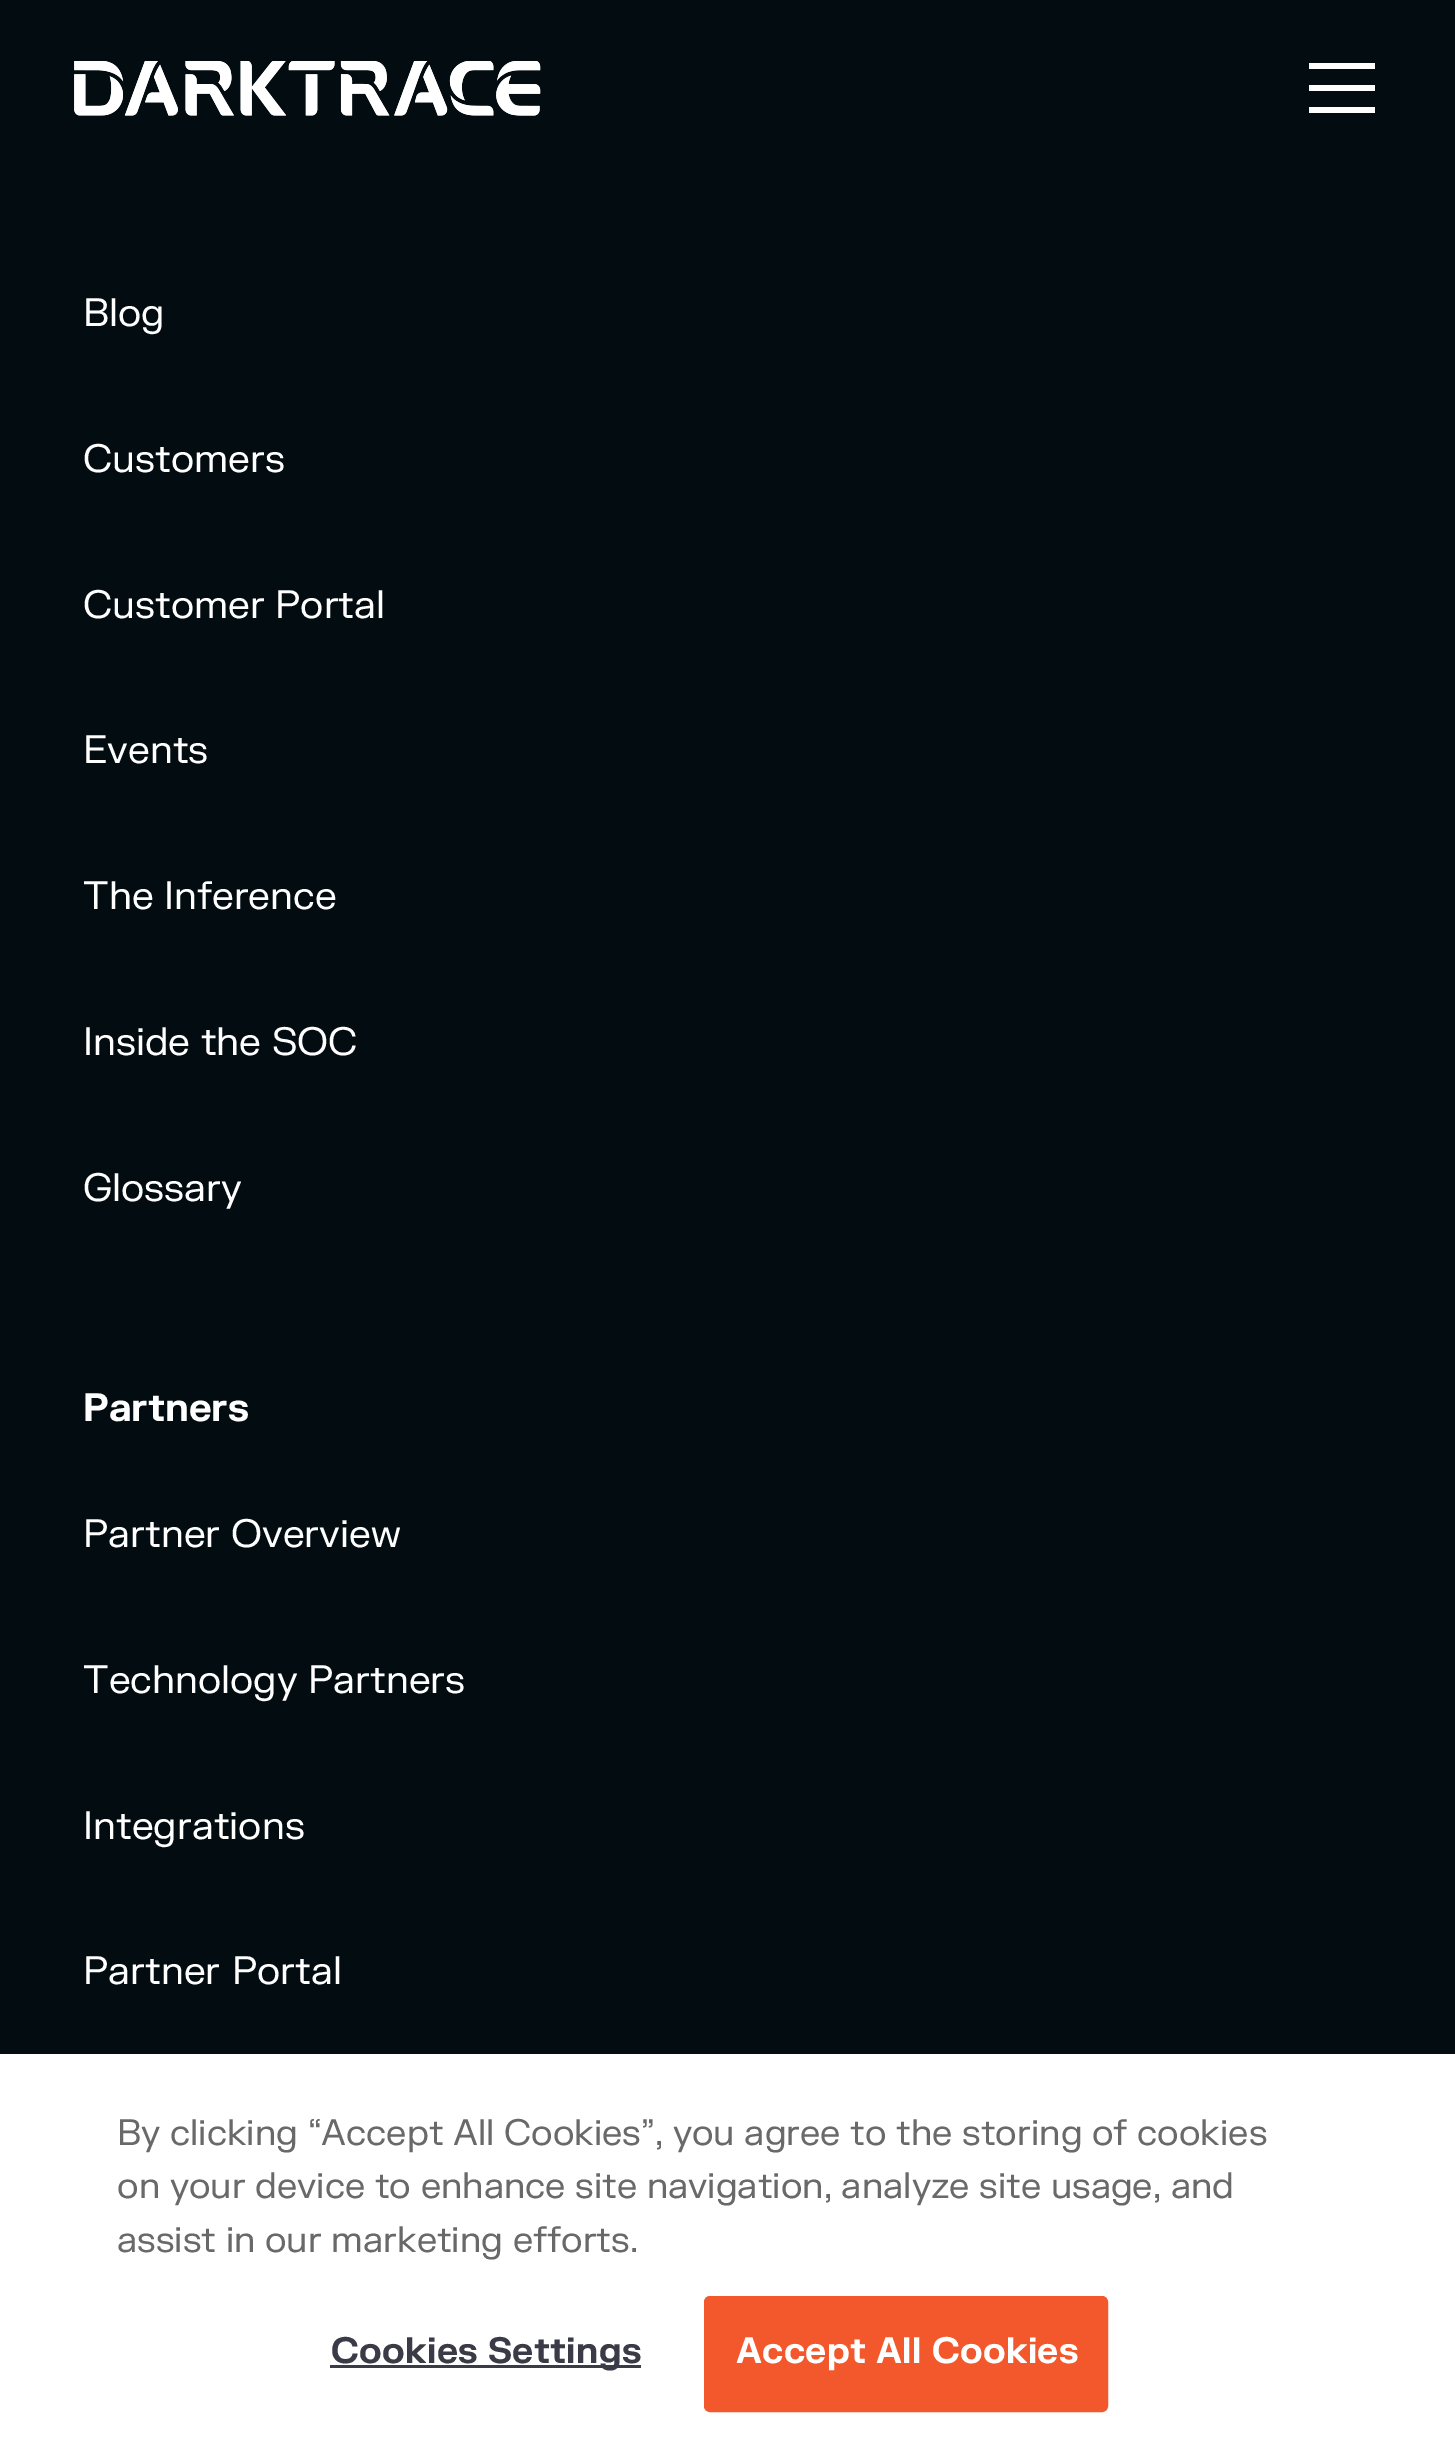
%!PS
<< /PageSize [1455 2454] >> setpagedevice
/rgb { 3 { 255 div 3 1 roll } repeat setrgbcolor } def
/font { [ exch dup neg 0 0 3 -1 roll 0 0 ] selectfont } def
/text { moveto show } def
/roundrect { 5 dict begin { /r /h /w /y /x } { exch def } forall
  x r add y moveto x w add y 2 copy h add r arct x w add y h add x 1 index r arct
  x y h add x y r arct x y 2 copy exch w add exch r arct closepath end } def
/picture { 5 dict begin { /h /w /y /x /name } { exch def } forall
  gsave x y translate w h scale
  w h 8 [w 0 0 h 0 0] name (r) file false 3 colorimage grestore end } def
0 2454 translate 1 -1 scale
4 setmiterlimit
3 13 17 rgb
0 0 1455 2454 rectfill
(img_01.rgb) 74 61 467 55 picture
255 255 255 rgb
1309 63 66 6 rectfill
1309 85 66 6 rectfill
1309 107 66 6 rectfill
0 2054 1455 400 rectfill
59 59 72 rgb
330 2365 311 3 rectfill
242 88 44 rgb
705.5 2297.5 401 113 4.5 roundrect gsave fill grestore
3 setlinewidth
stroke
/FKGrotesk-Regular 38.5 font
255 255 255 rgb
(Blog) 83 326 text
(Customers) 83 472 text
(Customer Portal) 83 618 text
(Events) 83 763 text
(The Inference) 83 909 text
(Inside the SOC) 83 1055 text
(Glossary) 83 1201 text
/FKGrotesk-Bold 38.5 font
(Partners) 83 1421 text
/FKGrotesk-Regular 38.5 font
(Partner Overview) 83 1547 text
(Technology Partners) 83 1693 text
(Integrations) 83 1839 text
83 1984 moveto 1 0 32 (Partner Portal) widthshow
/FKGrotesk-Regular 35.75 font
105 105 105 rgb
(By clicking “Accept All Cookies”, you agree to the storing of cookies) 117 2145 text
(on your device to enhance site navigation, analyze site usage, and) 117 2198 text
(assist in our marketing efforts.) 117 2252 text
/FKGrotesk-Bold 35.75 font
59 59 72 rgb
331 2363 moveto 0.4 0 (Cookies Settings) ashow
255 255 255 rgb
736 2363 moveto 0.4 0 (Accept All Cookies) ashow
showpage
